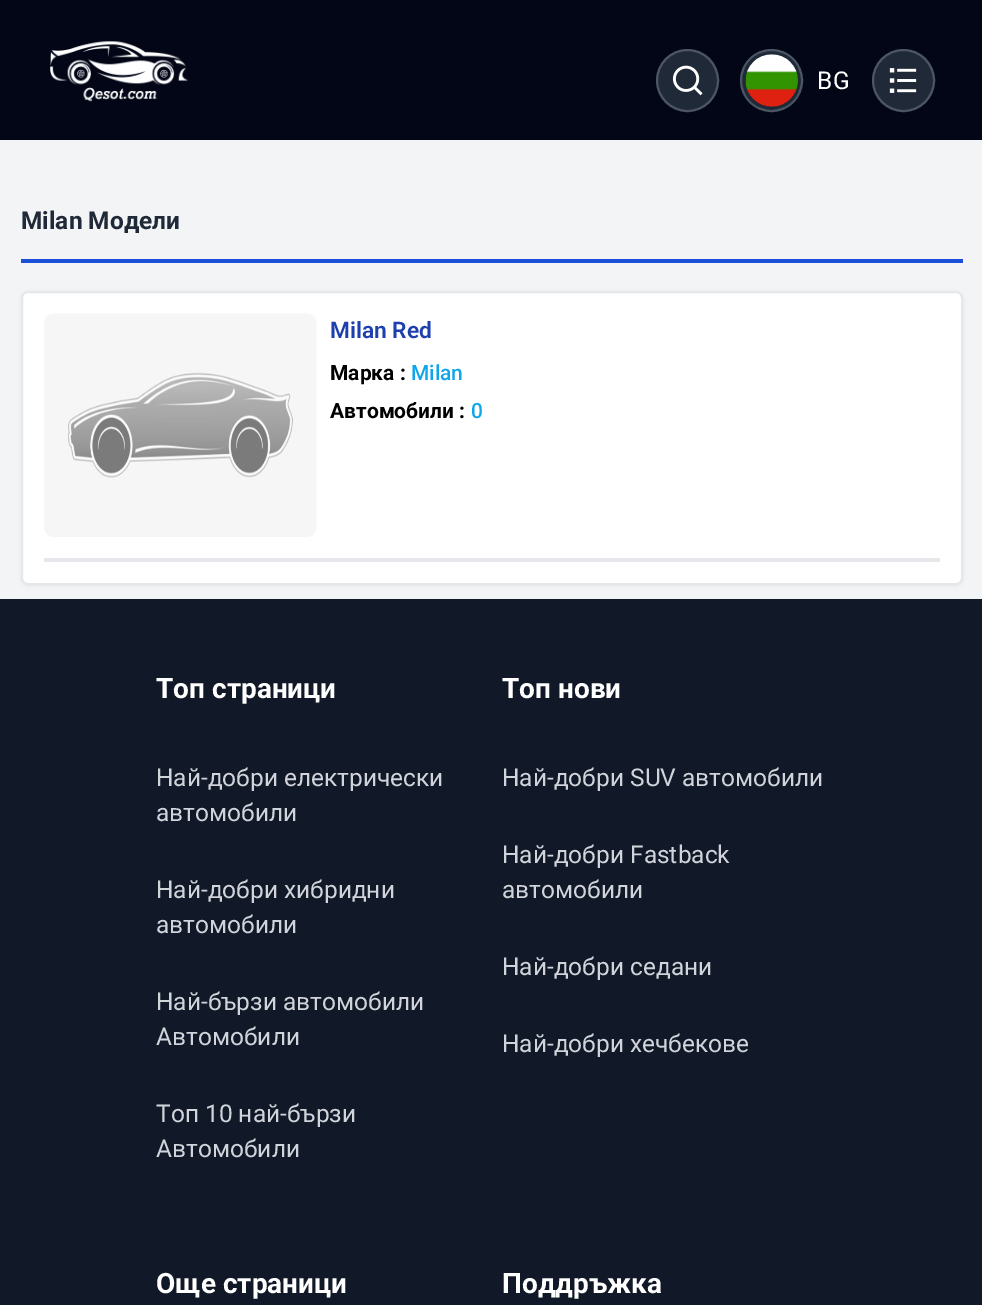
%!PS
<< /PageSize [982 1305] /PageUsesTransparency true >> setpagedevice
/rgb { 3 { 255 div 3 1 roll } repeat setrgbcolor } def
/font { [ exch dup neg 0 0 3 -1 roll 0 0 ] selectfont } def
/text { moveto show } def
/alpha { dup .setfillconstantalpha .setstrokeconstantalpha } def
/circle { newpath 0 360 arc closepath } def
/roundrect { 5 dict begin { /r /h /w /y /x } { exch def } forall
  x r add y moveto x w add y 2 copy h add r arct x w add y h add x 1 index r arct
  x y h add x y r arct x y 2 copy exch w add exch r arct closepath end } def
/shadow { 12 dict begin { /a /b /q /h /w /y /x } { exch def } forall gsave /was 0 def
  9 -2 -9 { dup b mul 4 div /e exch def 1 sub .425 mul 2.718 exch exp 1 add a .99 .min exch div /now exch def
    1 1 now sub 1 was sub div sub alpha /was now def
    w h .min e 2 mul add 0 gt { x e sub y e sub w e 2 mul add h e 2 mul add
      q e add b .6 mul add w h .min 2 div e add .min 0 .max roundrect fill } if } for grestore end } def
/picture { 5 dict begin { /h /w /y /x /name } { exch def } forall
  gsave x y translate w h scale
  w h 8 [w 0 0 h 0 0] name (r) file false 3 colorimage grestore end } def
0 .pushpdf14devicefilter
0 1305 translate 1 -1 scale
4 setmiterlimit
243 244 246 rgb
0 0 982 1305 rectfill
2 6 23 rgb
0 0 982 140 rectfill
(img_01.rgb) 50 41 138 61 picture
31 41 55 rgb
687.5 80.5 30.5 circle gsave fill grestore
75 85 99 rgb
2 setlinewidth
stroke
(img_02.rgb) 672 65 31 31 picture
31 41 55 rgb
771.5 80.5 30.5 circle gsave fill grestore
75 85 99 rgb
stroke
(img_03.rgb) 745 54 53 53 picture
31 41 55 rgb
903.5 80.5 30.5 circle gsave fill grestore
75 85 99 rgb
stroke
(img_04.rgb) 889 68 28 25 picture
29 78 216 rgb
21 259 942 4 rectfill
0 0 0 rgb
21 292 942 294 7 2 0.05 shadow
255 255 255 rgb
22 292 940 292 6 roundrect gsave fill grestore
229 231 235 rgb
stroke
44 558 896 4 rectfill
(img_05.rgb) 44 313 273 224 picture
17 24 39 rgb
0 599 982 706 rectfill
/Roboto-Regular 24.5 font
255 255 255 rgb
817 89 moveto 1 0 (BG) ashow
/Roboto-Bold 24.5 font
31 41 55 rgb
(Milan Модели) 21 229 text
/Roboto-SemiBold 22.75 font
30 64 175 rgb
(Milan Red) 330 338 text
/Roboto-Bold 21 font
0 0 0 rgb
(Марка :) 330 380 text
/Roboto-Medium 21 font
14 165 233 rgb
(Milan) 411 380 text
/Roboto-Bold 21 font
0 0 0 rgb
(Автомобили :) 330 418 text
/Roboto-Medium 21 font
14 165 233 rgb
(0) 471 418 text
/Roboto-Bold 28 font
255 255 255 rgb
(Топ страници) 156 698 text
/Roboto-Regular 24.5 font
209 213 219 rgb
(Най-добри електрически) 156 786 text
(автомобили) 156 821 text
(Най-добри хибридни) 156 898 text
(автомобили) 156 933 text
(Най-бързи автомобили) 156 1010 text
(Автомобили) 156 1045 text
(Топ 10 най-бързи) 156 1122 text
(Автомобили) 156 1157 text
/Roboto-Bold 28 font
255 255 255 rgb
(Топ нови) 502 698 text
/Roboto-Regular 24.5 font
209 213 219 rgb
(Най-добри SUV автомобили) 502 786 text
(Най-добри Fastback) 502 863 text
(автомобили) 502 898 text
(Най-добри седани) 502 975 text
(Най-добри хечбекове) 502 1052 text
/Roboto-Bold 28 font
255 255 255 rgb
(Още страници) 156 1293 text
(Поддръжка) 502 1293 text
.poppdf14devicefilter showpage
